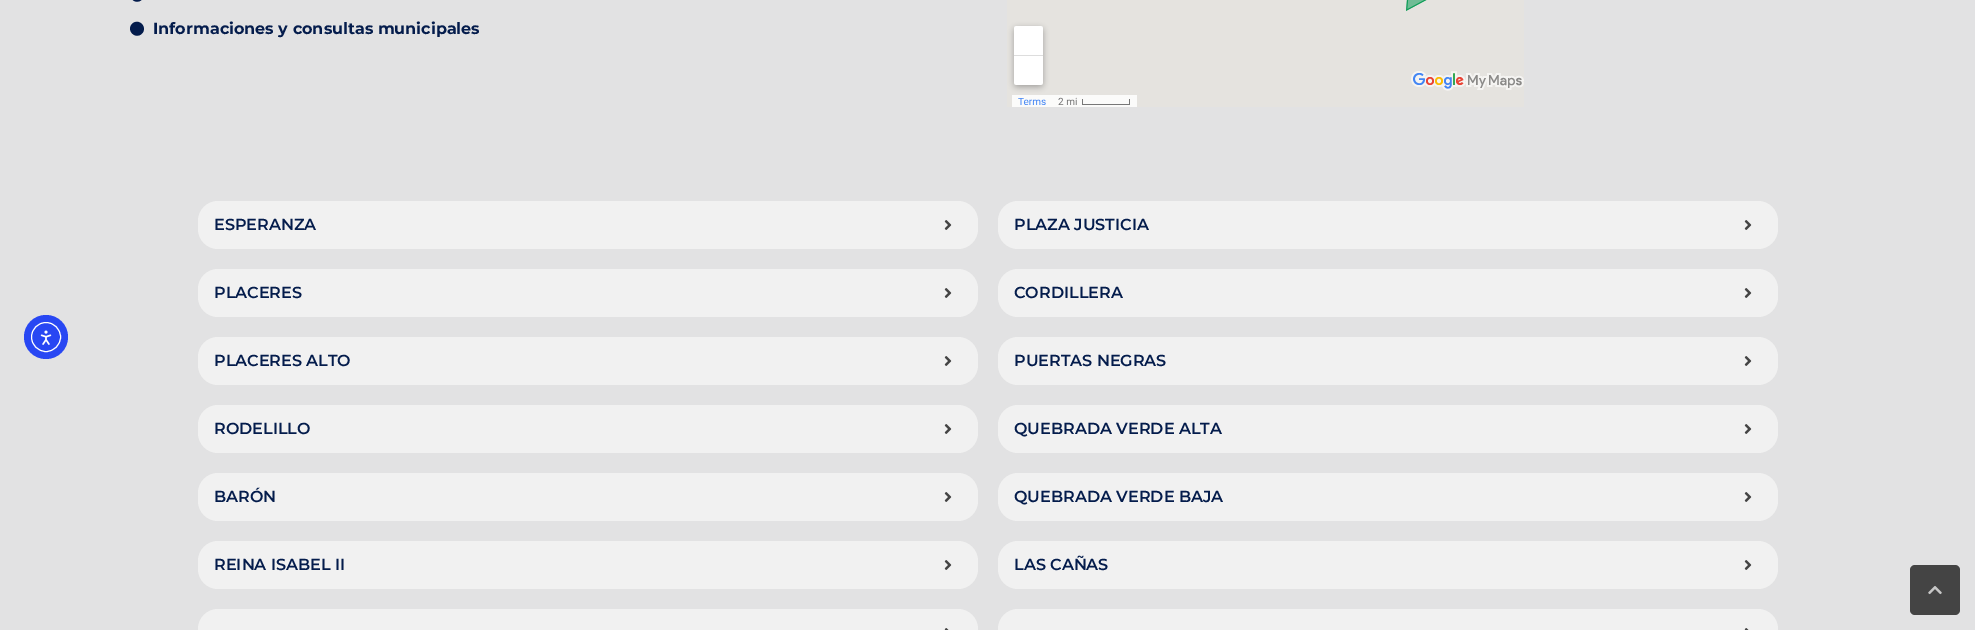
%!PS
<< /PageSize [1975 630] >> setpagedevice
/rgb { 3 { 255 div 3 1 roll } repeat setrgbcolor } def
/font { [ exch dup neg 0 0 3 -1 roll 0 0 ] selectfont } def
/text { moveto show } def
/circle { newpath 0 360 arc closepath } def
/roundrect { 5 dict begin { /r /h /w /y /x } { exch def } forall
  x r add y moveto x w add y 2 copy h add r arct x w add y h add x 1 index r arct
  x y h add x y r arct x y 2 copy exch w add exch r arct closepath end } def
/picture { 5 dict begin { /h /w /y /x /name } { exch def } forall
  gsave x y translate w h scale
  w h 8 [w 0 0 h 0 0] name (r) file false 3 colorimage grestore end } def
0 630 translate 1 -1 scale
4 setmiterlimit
226 226 227 rgb
0 0 1975 630 rectfill
40 71 243 rgb
46 337 22 circle fill
255 255 255 rgb
46 337 14.5 circle stroke
(img_01.rgb) 40 330 12 15 picture
4 28 76 rgb
132 -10 moveto 6.5 -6.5 16 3 10 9.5 rcurveto -6.5 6.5 -16 -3 -10 -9.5 rcurveto closepath fill
132 24 moveto 6.5 -6.5 16 3 10 9.5 rcurveto -6.5 6.5 -16 -3 -10 -9.5 rcurveto closepath fill
(img_02.rgb) 1007 0 517 107 picture
241 241 241 rgb
198 201 780 48 20 roundrect fill
(img_03.rgb) 944 220 8 10 picture
198 269 780 48 20 roundrect fill
(img_03.rgb) 944 288 8 10 picture
198 337 780 48 20 roundrect fill
(img_03.rgb) 944 356 8 10 picture
198 405 780 48 20 roundrect fill
(img_03.rgb) 944 424 8 10 picture
198 473 780 48 20 roundrect fill
(img_03.rgb) 944 492 8 10 picture
198 541 780 48 20 roundrect fill
(img_03.rgb) 944 560 8 10 picture
198 609 780 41 20 roundrect fill
(img_04.rgb) 944 628 5 2 picture
998 201 780 48 20 roundrect fill
(img_03.rgb) 1744 220 8 10 picture
998 269 780 48 20 roundrect fill
(img_03.rgb) 1744 288 8 10 picture
998 337 780 48 20 roundrect fill
(img_03.rgb) 1744 356 8 10 picture
998 405 780 48 20 roundrect fill
(img_03.rgb) 1744 424 8 10 picture
998 473 780 48 20 roundrect fill
(img_03.rgb) 1744 492 8 10 picture
998 541 780 48 20 roundrect fill
(img_03.rgb) 1744 560 8 10 picture
998 609 780 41 20 roundrect fill
(img_04.rgb) 1744 628 5 2 picture
68 68 68 rgb
1910 565 50 50 5 roundrect fill
(img_05.rgb) 1928 586 14 9 picture
/Montserrat-Bold 16 font
4 28 76 rgb
(Informaciones y consultas municipales) 153 34 text
/Montserrat-SemiBold 16 font
(ESPERANZA) 214 230 text
(PLACERES) 214 298 text
(PLACERES ALTO) 214 366 text
(RODELILLO) 214 434 text
(BARÓN) 214 502 text
(REINA ISABEL II) 214 570 text
(PLAZA JUSTICIA) 1014 230 text
(CORDILLERA) 1014 298 text
(PUERTAS NEGRAS) 1014 366 text
(QUEBRADA VERDE ALTA) 1014 434 text
(QUEBRADA VERDE BAJA) 1014 502 text
(LAS CAÑAS) 1014 570 text
showpage
